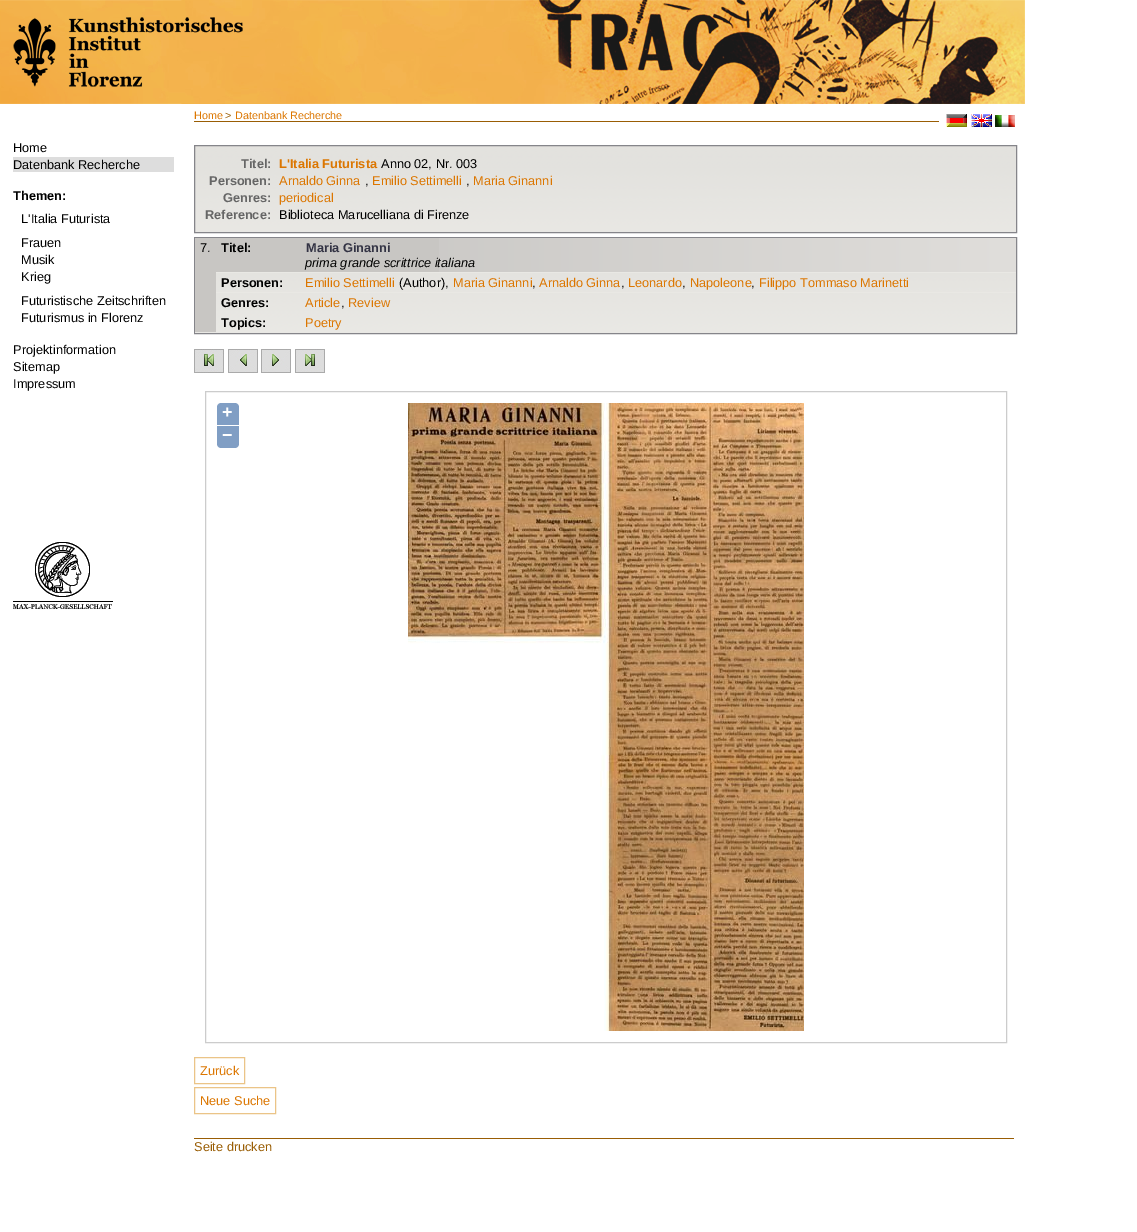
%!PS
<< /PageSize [1137 1232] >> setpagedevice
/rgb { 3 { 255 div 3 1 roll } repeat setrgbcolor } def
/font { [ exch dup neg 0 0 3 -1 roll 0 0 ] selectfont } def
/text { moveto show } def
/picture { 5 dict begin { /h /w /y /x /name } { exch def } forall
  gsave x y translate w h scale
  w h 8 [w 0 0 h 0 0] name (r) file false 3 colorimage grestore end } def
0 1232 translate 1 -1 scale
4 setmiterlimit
255 255 255 rgb
0 0 1137 1232 rectfill
(img_01.rgb) 0 0 1025 104 picture
221 221 221 rgb
13 157 161 15 rectfill
(img_02.rgb) 13 542 100 67 picture
153 93 4 rgb
194 121 745 1 rectfill
(img_03.rgb) 946 114 21 13 picture
(img_04.rgb) 971 114 21 13 picture
(img_05.rgb) 995 115 20 12 picture
(img_06.rgb) 195 146 821 86 picture
133 133 138 rgb
194.5 145.5 822 87 rectstroke
(img_07.rgb) 216 273 800 60 picture
194.5 237.5 822 96 rectstroke
200 198 195 rgb
195 238 21 94 rectfill
233 232 228 rgb
195 332 21 1 rectfill
200 198 195 rgb
216 238 223 34 rectfill
233 232 228 rgb
216 272 800 1 rectfill
(img_08.rgb) 439 238 577 34 picture
216 292 800 1 rectfill
(img_09.rgb) 194 349 30 24 picture
(img_10.rgb) 228 349 30 24 picture
(img_11.rgb) 261 349 30 24 picture
(img_12.rgb) 295 349 30 24 picture
204 204 204 rgb
205.5 391.5 801 651 rectstroke
128 158 196 rgb
221 403 moveto 14 0 rlineto 2 0 4 2 4 4 rcurveto 0 18 rlineto -22 0 rlineto 0 -18 rlineto 0 -2 2 -4 4 -4 rcurveto closepath fill
217 426 moveto 22 0 rlineto 0 18 rlineto 0 2 -2 4 -4 4 rcurveto -14 0 rlineto -2 0 -4 -2 -4 -4 rcurveto closepath fill
(img_13.rgb) 408 403 256 256 picture
(img_14.rgb) 664 403 140 256 picture
(img_15.rgb) 600 659 64 256 picture
(img_16.rgb) 664 659 140 256 picture
(img_17.rgb) 604 915 60 116 picture
(img_18.rgb) 664 915 140 116 picture
235 196 135 rgb
194.5 1057.5 50 26 rectstroke
194.5 1087.5 81 26 rectstroke
153 93 4 rgb
194 1138 820 1 rectfill
/LiberationSans-Regular 12.75 font
0 0 0 rgb
(Home) 13 152 text
(Datenbank Recherche) 13 169 text
/LiberationSans-Bold 12.75 font
(Themen:) 13 200 text
/LiberationSans-Regular 12.75 font
(L'Italia Futurista) 21 223 text
(Frauen) 21 247 text
(Musik) 21 264 text
(Krieg) 21 281 text
(Futuristische Zeitschriften) 21 305 text
(Futurismus in Florenz) 21 322 text
(Projektinformation) 13 354 text
(Sitemap) 13 371 text
(Impressum) 13 388 text
/LiberationSans-Regular 10.75 font
220 118 0 rgb
(Home) 194 119 text
153 93 4 rgb
(>) 225 119 text
220 118 0 rgb
(Datenbank Recherche) 235 119 text
/LiberationSans-Bold 12.75 font
102 102 102 rgb
(Titel:) 241 168 text
220 118 0 rgb
(L'Italia Futurista) 279 168 text
/LiberationSans-Regular 12.75 font
0 0 0 rgb
(Anno 02, Nr. 003) 381 168 text
/LiberationSans-Bold 12.75 font
102 102 102 rgb
(Personen:) 209 185 text
/LiberationSans-Regular 12.75 font
220 118 0 rgb
(Arnaldo Ginna) 279 185 text
0 0 0 rgb
(,) 365 185 text
220 118 0 rgb
(Emilio Settimelli) 372 185 text
0 0 0 rgb
(,) 466 185 text
220 118 0 rgb
(Maria Ginanni) 473 185 text
/LiberationSans-Bold 12.75 font
102 102 102 rgb
(Genres:) 223 202 text
/LiberationSans-Regular 12.75 font
220 118 0 rgb
(periodical) 279 202 text
/LiberationSans-Bold 12.75 font
102 102 102 rgb
(Reference:) 205 219 text
/LiberationSans-Regular 12.75 font
0 0 0 rgb
(Biblioteca Marucelliana di Firenze) 279 219 text
(7.) 200 252 text
/LiberationSans-Bold 12.75 font
(Titel:) 221 252 text
51 51 68 rgb
(Maria Ginanni) 306 252 text
/LiberationSans-Italic 12.75 font
0 0 0 rgb
(prima grande scrittrice italiana) 305 267 text
/LiberationSans-Bold 12.75 font
(Personen:) 221 287 text
/LiberationSans-Regular 12.75 font
220 118 0 rgb
(Emilio Settimelli) 305 287 text
0 0 0 rgb
(\(Author\),) 399 287 text
220 118 0 rgb
(Maria Ginanni) 453 287 text
0 0 0 rgb
(,) 532 287 text
220 118 0 rgb
(Arnaldo Ginna) 539 287 text
0 0 0 rgb
(,) 621 287 text
220 118 0 rgb
(Leonardo) 628 287 text
0 0 0 rgb
(,) 682 287 text
220 118 0 rgb
(Napoleone) 690 287 text
0 0 0 rgb
(,) 751 287 text
220 118 0 rgb
(Filippo Tommaso Marinetti) 759 287 text
/LiberationSans-Bold 12.75 font
0 0 0 rgb
(Genres:) 221 307 text
/LiberationSans-Regular 12.75 font
220 118 0 rgb
(Article) 305 307 text
0 0 0 rgb
(,) 341 307 text
220 118 0 rgb
(Review) 348 307 text
/LiberationSans-Bold 12.75 font
0 0 0 rgb
(Topics:) 221 327 text
/LiberationSans-Regular 12.75 font
220 118 0 rgb
(Poetry) 305 327 text
/LiberationSans-Bold 18 font
255 255 255 rgb
(+) 222 418 text
(−) 222 441 text
/LiberationSans-Regular 12.75 font
220 118 0 rgb
(Zurück) 200 1075 text
(Neue Suche) 200 1105 text
153 93 4 rgb
(Seite drucken) 194 1151 text
showpage
